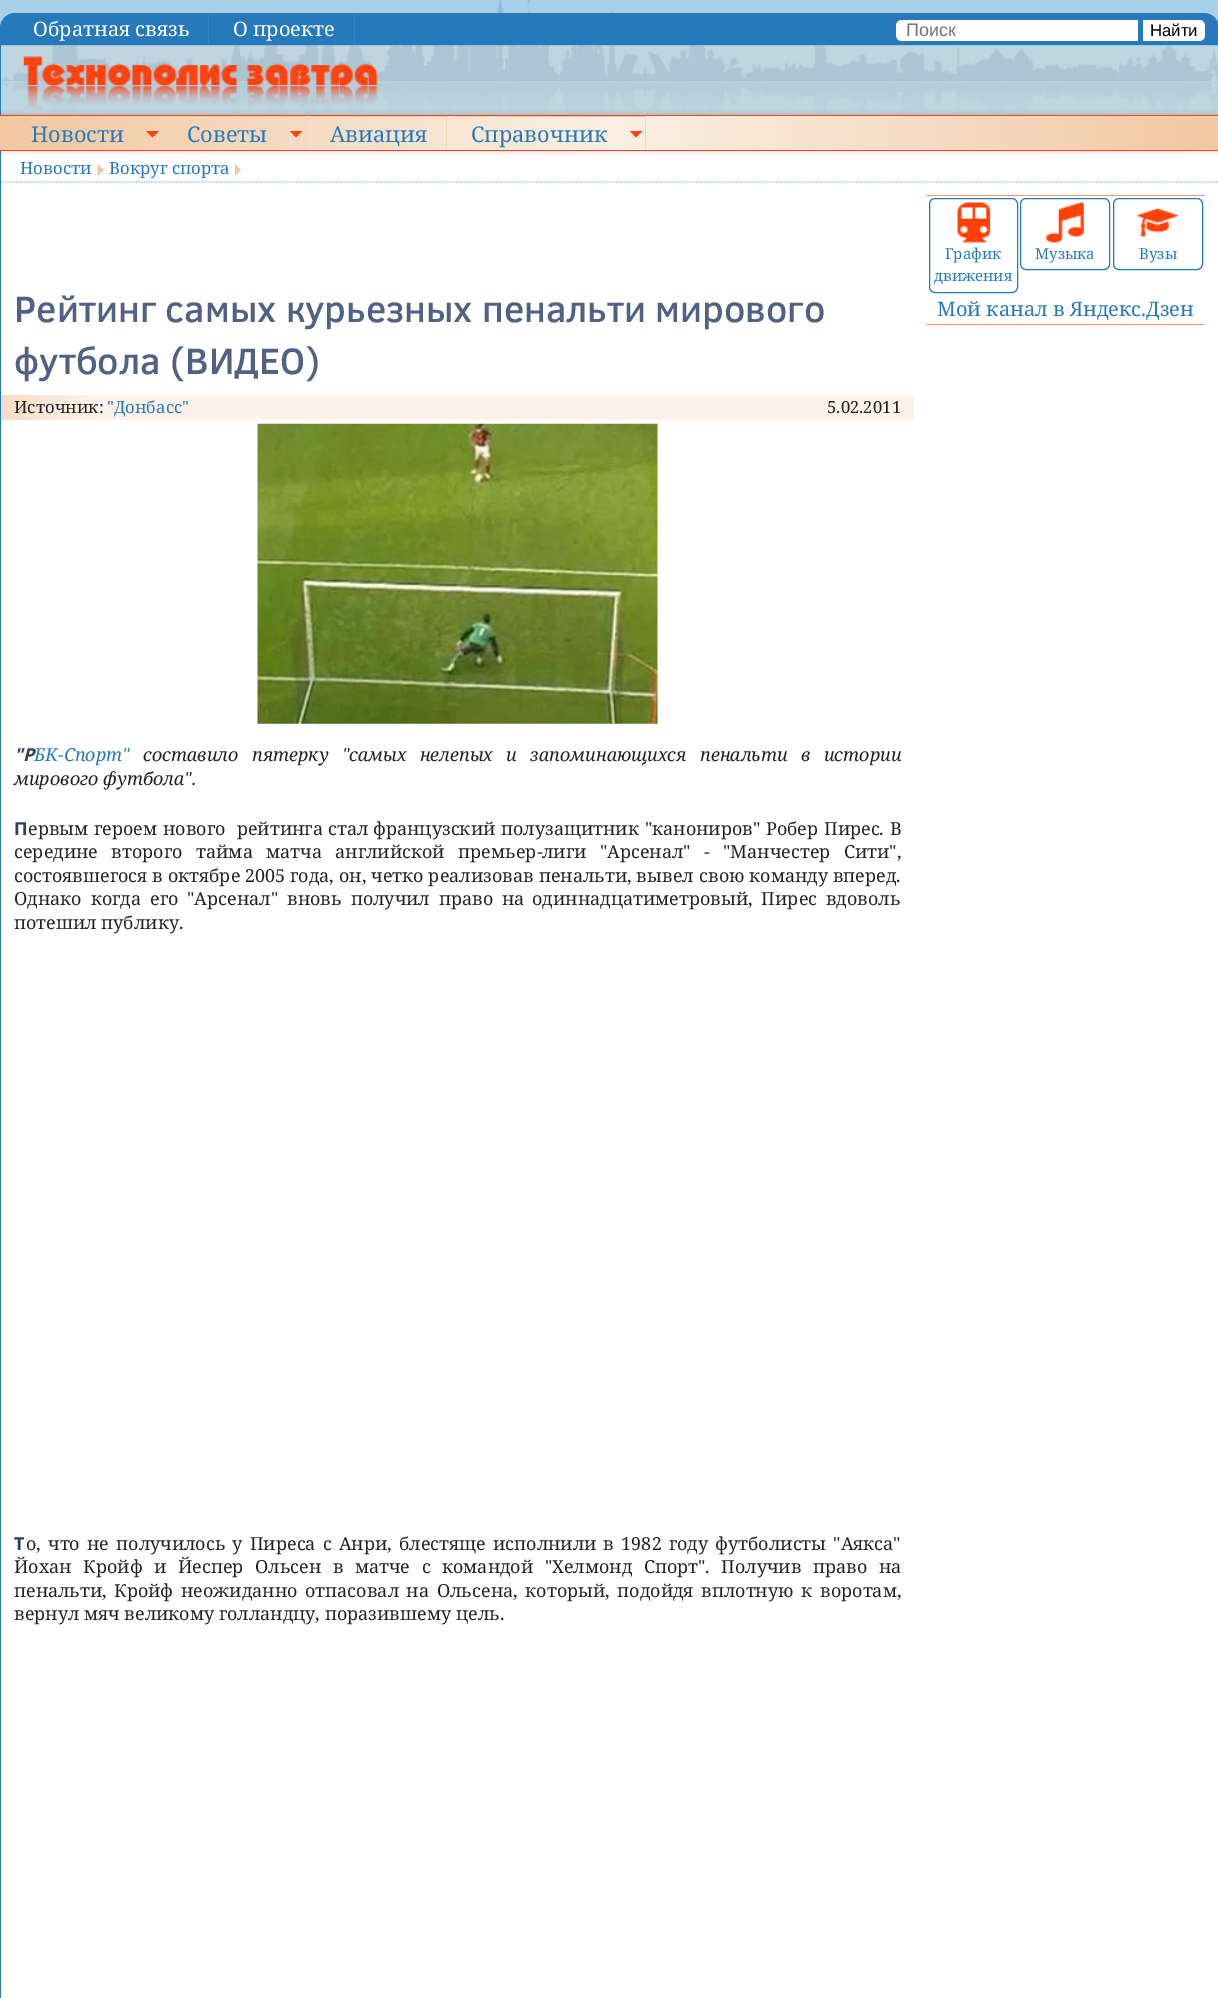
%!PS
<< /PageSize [1218 1998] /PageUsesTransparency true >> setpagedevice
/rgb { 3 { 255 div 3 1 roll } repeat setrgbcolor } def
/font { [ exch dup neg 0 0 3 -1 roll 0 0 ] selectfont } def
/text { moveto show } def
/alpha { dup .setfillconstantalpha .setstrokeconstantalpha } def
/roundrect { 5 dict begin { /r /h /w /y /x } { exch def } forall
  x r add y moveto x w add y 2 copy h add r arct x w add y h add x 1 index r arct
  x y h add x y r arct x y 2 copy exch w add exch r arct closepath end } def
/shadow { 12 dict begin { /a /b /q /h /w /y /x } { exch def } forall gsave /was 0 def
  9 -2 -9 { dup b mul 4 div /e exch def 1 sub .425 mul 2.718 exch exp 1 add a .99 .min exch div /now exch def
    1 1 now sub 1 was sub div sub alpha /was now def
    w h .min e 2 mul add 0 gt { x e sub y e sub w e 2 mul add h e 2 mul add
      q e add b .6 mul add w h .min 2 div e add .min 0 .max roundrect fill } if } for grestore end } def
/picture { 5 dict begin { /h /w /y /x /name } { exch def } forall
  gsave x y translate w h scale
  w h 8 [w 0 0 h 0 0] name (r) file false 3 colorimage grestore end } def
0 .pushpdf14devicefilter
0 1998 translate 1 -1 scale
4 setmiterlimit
255 255 255 rgb
0 0 1218 1998 rectfill
(img_01.rgb) 0 0 1218 115 picture
38 121 186 rgb
15 13.5 moveto 1189 0 rlineto 8 0 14.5 6.5 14.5 14.5 rcurveto 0 16.5 rlineto -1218 0 rlineto 0 -16.5 rlineto 0 -8 6.5 -14.5 14.5 -14.5 rcurveto closepath gsave fill grestore
stroke
42 135 207 rgb
208 14 1 30 rectfill
354 14 1 30 rectfill
255 255 255 rgb
902 20 moveto 236 0 rlineto 0 21 rlineto -236 0 rlineto -3.5 0 -6 -2.5 -6 -6 rcurveto 0 -9 rlineto 0 -3.5 2.5 -6 6 -6 rcurveto closepath fill
1143 20 moveto 56 0 rlineto 3.5 0 6 2.5 6 6 rcurveto 0 9 rlineto 0 3.5 -2.5 6 -6 6 rcurveto -56 0 rlineto closepath fill
0.25 alpha
255 231 195 rgb
1 45 1217 70 rectfill
1 alpha
38 121 186 rgb
0 45 1 70 rectfill
(img_02.rgb) 23 56 355 54 picture
0 151 1 1847 rectfill
0 0 0 rgb
0 115 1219 36 0 3 0.2 shadow
gsave 0 116 moveto 1218 0 rlineto 0 34 rlineto -1218 0 rlineto closepath clip newpath
<< /ShadingType 2 /ColorSpace /DeviceRGB /Coords [0 133 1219 133] /Extend [true true] /Function << /FunctionType 3 /Domain [0 1] /Functions [<< /FunctionType 2 /Domain [0 1] /C0 [0.949 0.784 0.635] /C1 [0.984 0.941 0.898] /N 1 >> << /FunctionType 2 /Domain [0 1] /C0 [0.984 0.941 0.898] /C1 [0.949 0.784 0.635] /N 1 >>] /Bounds [0.5] /Encode [0 1 0 1] >> >> shfill grestore
255 67 16 rgb
0 115 1218 1 rectfill
0 150 1218 1 rectfill
242 200 162 rgb
23 116 140 1 rectfill
245 213 184 rgb
161 116 1 34 rectfill
255 67 16 rgb
146 131 moveto 13 0 rlineto -6.5 6.5 rlineto closepath fill
242 200 162 rgb
169 116 137 1 rectfill
245 213 184 rgb
305 116 1 34 rectfill
255 67 16 rgb
290 131 moveto 12.5 0 rlineto -6.5 6.5 rlineto closepath fill
242 200 162 rgb
311 116 137 1 rectfill
245 213 184 rgb
446 116 1 34 rectfill
242 200 162 rgb
453 116 193 1 rectfill
245 213 184 rgb
645 116 1 34 rectfill
255 67 16 rgb
630 131 moveto 12.5 0 rlineto -6.5 6.5 rlineto closepath fill
145 194 232 rgb
1.2 setlinewidth
[1.25 1.25] 0 setdash
1 182 moveto 1216.5 0 rlineto stroke
242 200 162 rgb
97.5 176 moveto 0 -12 rlineto 6.5 6 rlineto closepath fill
235 176 moveto 0 -12 rlineto 6 6 rlineto closepath fill
255 147 118 rgb
926 195 279 1 rectfill
926 324 279 1 rectfill
38 121 186 rgb
1 setlinewidth
[] 0 setdash
929.5 198.5 88 94 5.5 roundrect stroke
(img_03.rgb) 957 202 34 41 picture
1020.5 198.5 89 71 5.5 roundrect stroke
(img_04.rgb) 1046 202 38 41 picture
1113.5 198.5 89 71 5.5 roundrect stroke
(img_05.rgb) 1137 208 41 29 picture
gsave 1 395 moveto 913 0 rlineto 0 25 rlineto -913 0 rlineto closepath clip newpath
<< /ShadingType 2 /ColorSpace /DeviceRGB /Coords [1.2 408 914 408] /Extend [true true] /Function << /FunctionType 3 /Domain [0 1] /Functions [<< /FunctionType 2 /Domain [0 1] /C0 [0.969 0.867 0.776] /C1 [0.988 0.949 0.918] /N 1 >> << /FunctionType 2 /Domain [0 1] /C0 [0.988 0.949 0.918] /C1 [0.988 0.949 0.918] /N 1 >>] /Bounds [0.1] /Encode [0 1 0 1] >> >> shfill grestore
(img_06.rgb) 257 423 401 301 picture
/NotoSerif-Regular 20 font
255 255 255 rgb
(Обратная связь) 33 36 text
(О проекте) 233 36 text
/LiberationSans-Regular 18 font
117 117 117 rgb
(Поиск) 906 36 text
/LiberationSans-Regular 16.75 font
0 0 0 rgb
(Найти) 1150 36 text
/NotoSerif-Regular 21.75 font
38 121 186 rgb
(Новости) 31 142 text
(Советы) 187 142 text
(Авиация) 330 142 text
(Справочник) 471 142 text
/NotoSerif-Regular 16.75 font
(Новости) 20 174 text
(Вокруг спорта) 109 174 text
/NotoSerif-Regular 15 font
(График) 945 259 text
(движения) 934 281 text
(Музыка) 1035 259 text
(Вузы) 1139 259 text
/NotoSerif-Regular 20 font
(Мой канал в Яндекс.Дзен) 937 316 text
/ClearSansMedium-Medium 37.5 font
81 97 131 rgb
(Рейтинг самых курьезных пенальти мирового) 14 322 text
(футбола \(ВИДЕО\)) 14 374 text
/NotoSerif-Regular 16.75 font
34 34 34 rgb
(Источник:) 14 413 text
38 121 186 rgb
("Донбасс") 107 413 text
34 34 34 rgb
(5.02.2011) 827 413 text
/NotoSans-BoldItalic 18 font
52 62 84 rgb
("Р) 14 761 text
/NotoSerif-Italic 18 font
38 121 186 rgb
(БК-Спорт") 34 761 text
34 34 34 rgb
143 761 moveto 8.75 0 32 (составило пятерку "самых нелепых и запоминающихся пенальти в истории) widthshow
(мирового футбола".) 14 785 text
/NotoSans-Bold 18 font
52 62 84 rgb
(П) 14 835 text
/NotoSerif-Regular 18 font
34 34 34 rgb
28 835 moveto 1 0 32 (ервым героем нового  рейтинга стал) widthshow
373 835 moveto 1 0 32 (французский полузащитник "канониров" Робер Пирес. В) widthshow
14 858 moveto 8.75 0 32 (середине второго) widthshow
196 858 moveto 8.75 0 32 (тайма матча английской премьер-лиги "Арсенал" - "Манчестер Сити",) widthshow
14 882 moveto 0.25 0 32 (состоявшегося в октябре 2005 года, он, четко реализовав пенальти, вывел) widthshow
(свою команду вперед.) 699 882 text
14 905 moveto 4.25 0 32 (Однако когда его "Арсенал" вновь получил право на) widthshow
532 905 moveto 4 0 32 (одиннадцатиметровый, Пирес вдоволь) widthshow
(потешил публику.) 14 929 text
/NotoSans-Bold 18 font
52 62 84 rgb
(Т) 14 1550 text
/NotoSerif-Regular 18 font
34 34 34 rgb
26 1550 moveto 2.5 0 32 (о, что не получилось у Пиреса с Анри,) widthshow
399 1550 moveto 2.5 0 32 (блестяще исполнили в 1982 году футболисты "Аякса") widthshow
14 1573 moveto 6.75 0 32 (Йохан Кройф и Йеспер) widthshow
255 1573 moveto 6.75 0 32 (Ольсен в матче с командой "Хелмонд Спорт". Получив право на) widthshow
(пенальти,) 14 1597 text
114 1597 moveto 3 0 32 (Кройф неожиданно отпасовал на Ольсена, который, подойдя вплотную к) widthshow
(воротам,) 820 1597 text
(вернул мяч великому голландцу, поразившему цель.) 14 1620 text
.poppdf14devicefilter showpage
